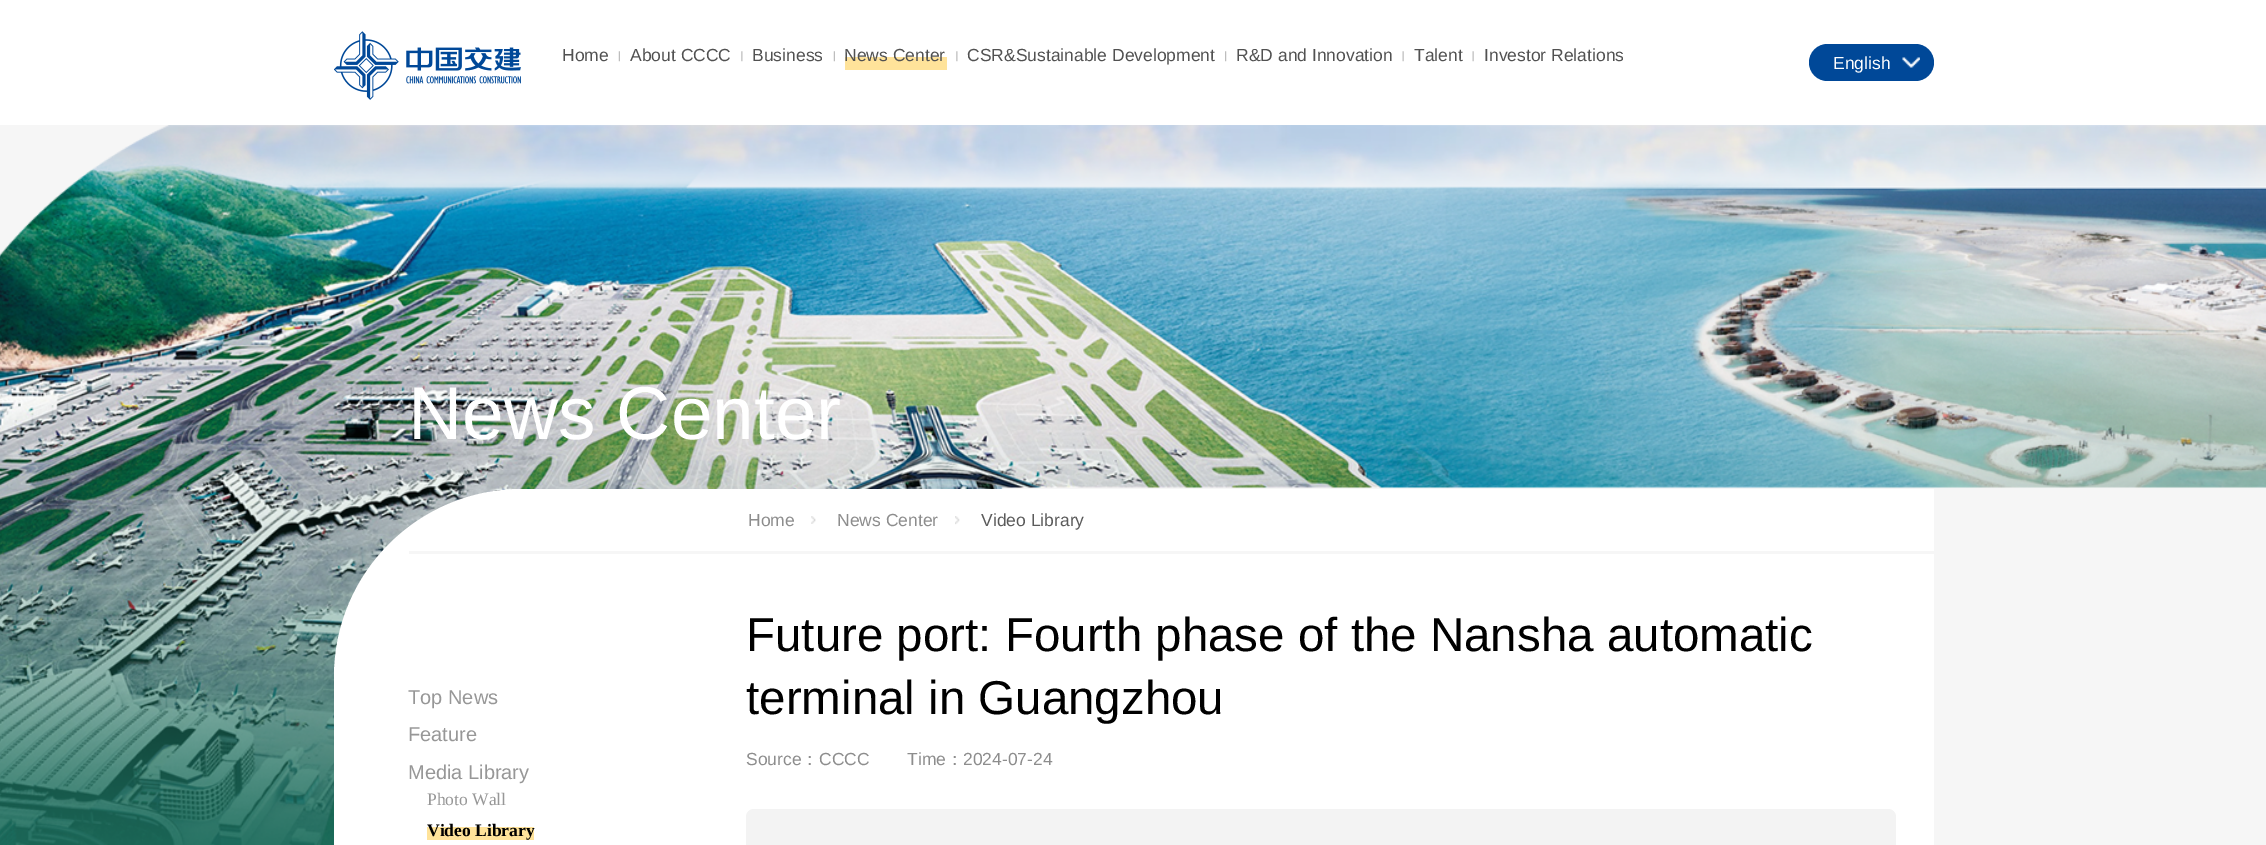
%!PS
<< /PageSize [2266 845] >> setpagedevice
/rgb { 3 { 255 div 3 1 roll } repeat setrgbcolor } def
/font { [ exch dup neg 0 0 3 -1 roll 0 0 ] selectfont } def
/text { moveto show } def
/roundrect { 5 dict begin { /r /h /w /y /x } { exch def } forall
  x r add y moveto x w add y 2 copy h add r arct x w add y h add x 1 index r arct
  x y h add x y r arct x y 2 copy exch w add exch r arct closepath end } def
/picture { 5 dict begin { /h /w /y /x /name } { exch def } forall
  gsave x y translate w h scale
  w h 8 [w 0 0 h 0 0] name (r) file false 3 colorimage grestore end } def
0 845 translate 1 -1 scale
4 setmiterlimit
255 255 255 rgb
0 0 2266 845 rectfill
(img_01.rgb) 334 31 187 69 picture
(img_02.rgb) 618 51 2 11 picture
(img_03.rgb) 741 51 2 11 picture
(img_02.rgb) 833 51 2 11 picture
255 227 154 rgb
845 57 102 13 rectfill
(img_03.rgb) 956 51 2 11 picture
(img_04.rgb) 1225 51 2 11 picture
(img_05.rgb) 1402 51 2 11 picture
(img_05.rgb) 1472 51 2 11 picture
0 72 152 rgb
1809 44 125 37 18.5 roundrect fill
(img_06.rgb) 1902 57 18 11 picture
246 246 246 rgb
0 125 2266 720 rectfill
(img_07.rgb) 0 125 2266 720 picture
255 255 255 rgb
522 489 moveto 1412 0 rlineto 0 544 rlineto -1600 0 rlineto 0 -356 rlineto 0 -104 84 -188 188 -188 rcurveto closepath fill
246 246 246 rgb
409 551 1525 3 rectfill
(img_08.rgb) 811 516 5 8 picture
(img_09.rgb) 955 516 5 9 picture
255 227 154 rgb
427 827 107 13 rectfill
243 243 243 rgb
746 809 1150 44 8 roundrect fill
/LiberationSans-Regular 17.5 font
81 81 81 rgb
(Home) 562 61 text
(About CCCC) 630 61 text
(Business) 752 61 text
(News Center) 844 61 text
(CSR&Sustainable Development) 967 61 text
(R&D and Innovation) 1236 61 text
(Talent) 1414 61 text
(Investor Relations) 1484 61 text
255 255 255 rgb
(English) 1833 69 text
/LiberationSans-Regular 75 font
(News Center) 408 439 text
/LiberationSans-Regular 17.5 font
141 141 141 rgb
(Home) 748 526 text
(News Center) 837 526 text
91 91 91 rgb
(Video Library) 981 526 text
/LiberationSans-Regular 20 font
151 151 151 rgb
(Top News) 408 704 text
(Feature) 408 741 text
(Media Library) 408 779 text
/LiberationSerif-Regular 17.5 font
(Photo Wall) 427 805 text
/LiberationSerif-Bold 17.5 font
0 0 0 rgb
(Video Library) 427 836 text
/LiberationSans-Regular 47.5 font
(Future port: Fourth phase of the Nansha automatic) 746 651 text
(terminal in Guangzhou) 746 714 text
/LiberationSans-Regular 17.5 font
141 141 141 rgb
(Source) 746 765 text
/WenQuanYiZenHei-Medium 17.5 font
(：) 801 765 text
/LiberationSans-Regular 17.5 font
(CCCC) 819 765 text
(Time) 907 765 text
/WenQuanYiZenHei-Medium 17.5 font
(：) 946 765 text
/LiberationSans-Regular 17.5 font
(2024-07-24) 963 765 text
showpage
